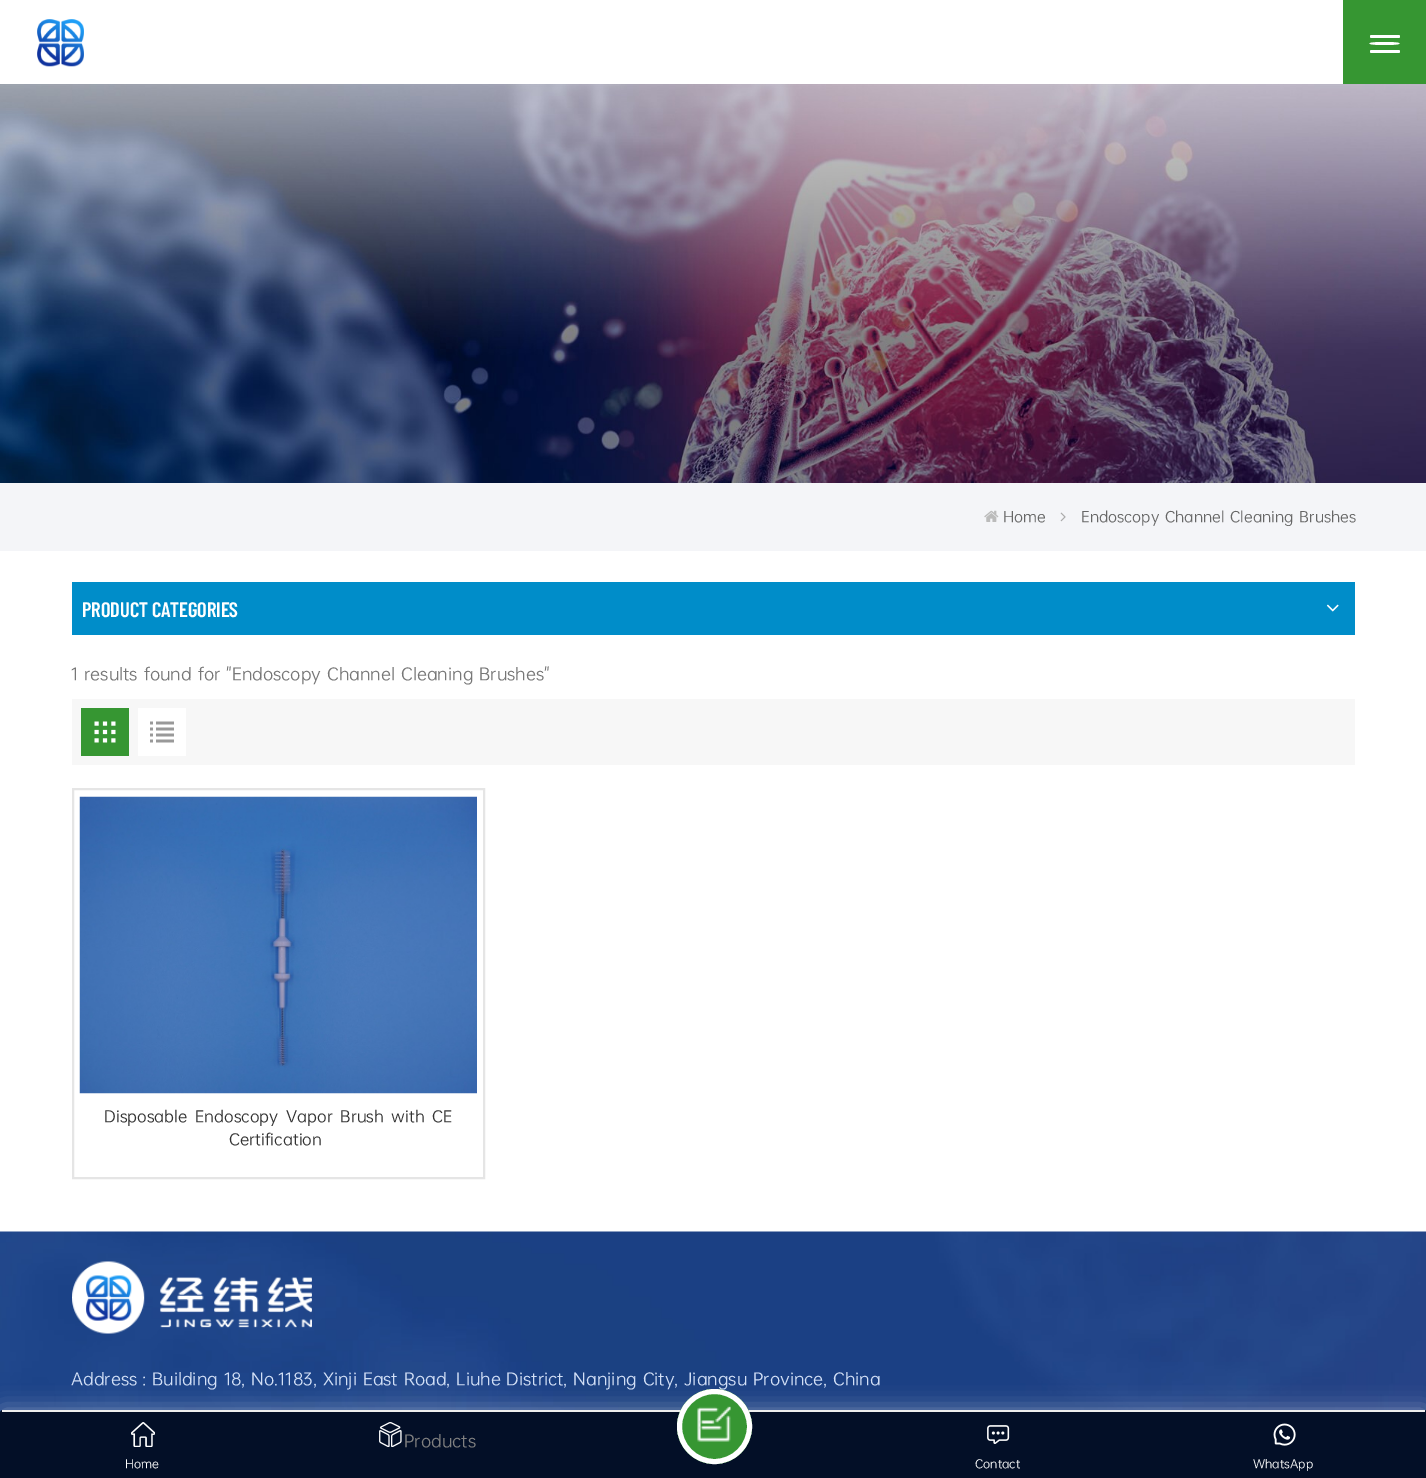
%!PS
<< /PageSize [1426 1478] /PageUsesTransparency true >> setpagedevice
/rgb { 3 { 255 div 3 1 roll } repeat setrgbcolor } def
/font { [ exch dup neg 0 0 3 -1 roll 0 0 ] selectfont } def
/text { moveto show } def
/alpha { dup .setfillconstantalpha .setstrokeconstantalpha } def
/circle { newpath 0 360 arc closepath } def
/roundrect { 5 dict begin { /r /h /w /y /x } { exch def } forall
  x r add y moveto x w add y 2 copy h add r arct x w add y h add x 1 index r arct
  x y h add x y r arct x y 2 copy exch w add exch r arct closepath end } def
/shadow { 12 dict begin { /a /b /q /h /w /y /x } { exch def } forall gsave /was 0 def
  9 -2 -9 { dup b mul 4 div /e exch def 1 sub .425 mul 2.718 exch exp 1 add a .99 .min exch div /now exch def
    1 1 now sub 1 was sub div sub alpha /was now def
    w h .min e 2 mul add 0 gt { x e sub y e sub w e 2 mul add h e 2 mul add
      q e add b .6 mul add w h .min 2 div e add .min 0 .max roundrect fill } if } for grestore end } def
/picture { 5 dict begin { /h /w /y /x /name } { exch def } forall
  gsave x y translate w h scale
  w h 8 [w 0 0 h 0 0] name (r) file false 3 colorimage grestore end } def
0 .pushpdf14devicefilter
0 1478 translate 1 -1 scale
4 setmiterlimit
255 255 255 rgb
0 0 1426 1478 rectfill
(img_01.rgb) 37 19 47 48 picture
54 150 50 rgb
1343 0 83 84 rectfill
255 255 255 rgb
1384.5 42 moveto 8.5 0 15 0.5 15 1.5 rcurveto 0 1 -6.5 1.5 -15 1.5 rcurveto -8.5 0 -15 -0.5 -15 -1.5 rcurveto 0 -1 6.5 -1.5 15 -1.5 rcurveto closepath fill
1370 35 30 3 1.5 roundrect fill
1370 50 30 3 1.5 roundrect fill
(img_02.rgb) 0 84 1426 399 picture
244 245 248 rgb
0 483 1426 68 rectfill
(img_03.rgb) 984 510 15 12 picture
(img_04.rgb) 1060 512 6 10 picture
0 141 201 rgb
72 582 1283 53 rectfill
(img_05.rgb) 1326 604 13 8 picture
247 247 247 rgb
72 699 1283 66 rectfill
54 150 50 rgb
81 708 48 48 rectfill
(img_06.rgb) 94 721 22 22 picture
255 255 255 rgb
138 708 48 48 rectfill
(img_07.rgb) 150 721 24 22 picture
229 229 229 rgb
2 setlinewidth
73 789 411 389 rectstroke
(img_08.rgb) 79 796 398 298 picture
(img_09.rgb) 0 1231 1426 182 picture
(img_10.rgb) 72 1261 240 73 picture
255 255 255 rgb
0 1410 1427 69 3 11 0.4 shadow
3 15 39 rgb
3 1410 moveto 1421 0 rlineto 1.5 0 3 1.5 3 3 rcurveto 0 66 rlineto -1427 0 rlineto 0 -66 rlineto 0 -1.5 1.5 -3 3 -3 rcurveto closepath fill
238 238 238 rgb
2 1410 1423 2 rectfill
(img_12.rgb) 379 1422 23 25 picture
(img_13.rgb) 131 1422 24 25 picture
(img_14.rgb) 987 1425 23 19 picture
(img_15.rgb) 1273 1423 23 23 picture
/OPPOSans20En-Medium 15.75 font
102 102 102 rgb
(Home) 1003 522 text
1081 522 moveto 2 0 32 (Endoscopy Channel Cleaning Brushes) widthshow
/BarlowCondensed-SemiBold 21 font
255 255 255 rgb
(PRODUCT CATEGORIES) 82 617 text
/OPPOSans20En-Medium 18 font
119 119 119 rgb
71 680 moveto 1.5 0 32 (1 results found for "Endoscopy Channel Cleaning Brushes") widthshow
/OPPOSans20En-Medium 16.8 font
51 51 51 rgb
104 1122 moveto 3.5 0 32 (Disposable Endoscopy Vapor Brush with CE) widthshow
(Certification) 229 1145 text
/OPPOSans20En-Medium 18 font
210 223 246 rgb
71 1385 moveto 1 0 32 (Address :) widthshow
152 1385 moveto 1.4 0 32 (Building 18, No.1183, Xinji East Road, Liuhe District, Nanjing City, Jiangsu Province, China) widthshow
54 150 50 rgb
714.5 1426.5 37.5 circle fill
(img_11.rgb) 697 1406 34 36 picture
255 255 255 rgb
5 setlinewidth
714.5 1426.5 35 circle stroke
128 128 128 rgb
(Products) 404 1447 text
/OPPOSans20En-Medium 12.5 font
255 255 255 rgb
(Home) 125 1468 text
(Contact) 975 1468 text
(WhatsApp) 1253 1468 text
.poppdf14devicefilter showpage
